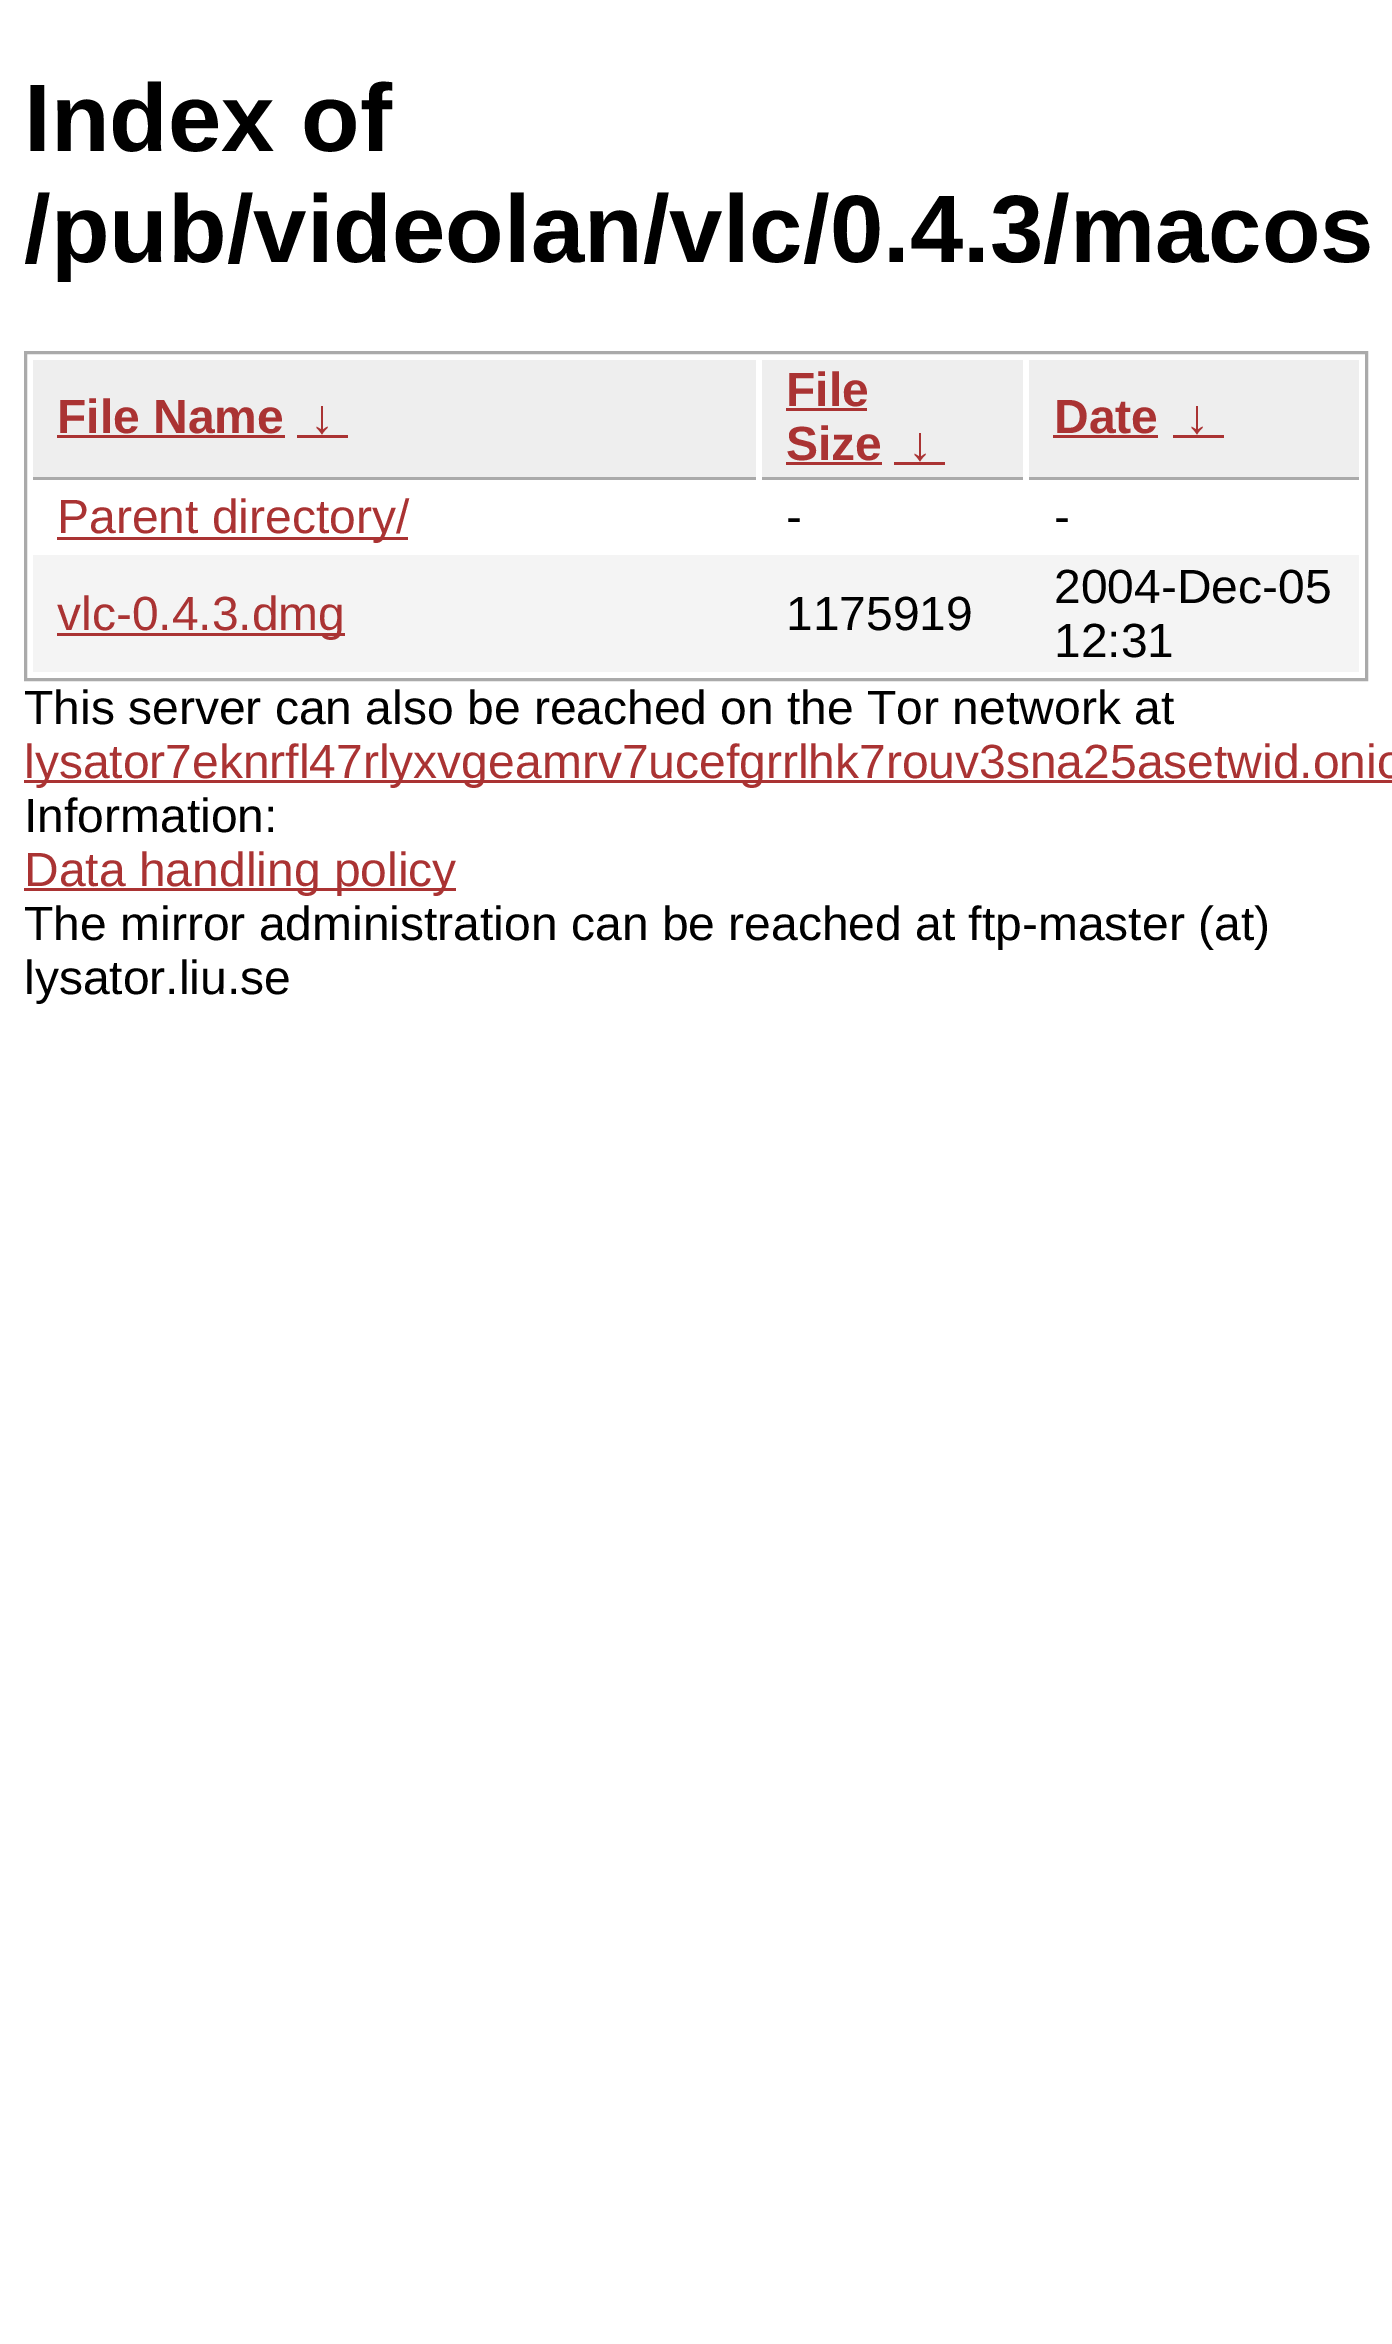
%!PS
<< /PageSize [1392 2344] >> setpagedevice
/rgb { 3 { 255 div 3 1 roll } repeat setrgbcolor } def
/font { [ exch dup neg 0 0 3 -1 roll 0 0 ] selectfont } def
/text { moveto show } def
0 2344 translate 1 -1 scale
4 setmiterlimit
255 255 255 rgb
0 0 1392 2344 rectfill
170 170 170 rgb
3 setlinewidth
25.5 352.5 1341 327 rectstroke
238 238 238 rgb
33 360 723 117 rectfill
170 170 170 rgb
33 477 723 3 rectfill
170 51 51 rgb
57 435 228 3 rectfill
297 435 51 3 rectfill
238 238 238 rgb
762 360 261 117 rectfill
170 170 170 rgb
762 477 261 3 rectfill
170 51 51 rgb
786 408 81 3 rectfill
786 462 96 3 rectfill
894 462 51 3 rectfill
238 238 238 rgb
1029 360 330 117 rectfill
170 170 170 rgb
1029 477 330 3 rectfill
170 51 51 rgb
1053 435 105 3 rectfill
1173 435 51 3 rectfill
57 537 351 3 rectfill
244 244 244 rgb
33 555 1326 117 rectfill
170 51 51 rgb
57 633 288 3 rectfill
24 780 1368 3 rectfill
24 888 432 3 rectfill
/LiberationSans-Bold 96 font
0 0 0 rgb
(Index of) 24 151 text
(/pub/videolan/vlc/0.4.3/macos) 24 262 text
/LiberationSans-Bold 48 font
170 51 51 rgb
(File Name) 57 433 text
(↓) 310 433 text
(File) 786 406 text
(Size) 786 460 text
(↓) 908 460 text
(Date) 1054 433 text
(↓) 1185 433 text
/LiberationSans-Regular 48 font
(Parent directory/) 57 533 text
0 0 0 rgb
(-) 786 533 text
(-) 1054 533 text
170 51 51 rgb
(vlc-0.4.3.dmg) 57 630 text
0 0 0 rgb
(1175919) 786 630 text
(2004-Dec-05) 1054 603 text
(12:31) 1054 657 text
(This server can also be reached on the Tor network at) 24 724 text
170 51 51 rgb
(lysator7eknrfl47rlyxvgeamrv7ucefgrrlhk7rouv3sna25asetwid.onio) 24 778 text
0 0 0 rgb
(Information:) 24 832 text
170 51 51 rgb
(Data handling policy) 24 886 text
0 0 0 rgb
(The mirror administration can be reached at ftp-master \(at\)) 24 940 text
(lysator.liu.se) 24 994 text
showpage
